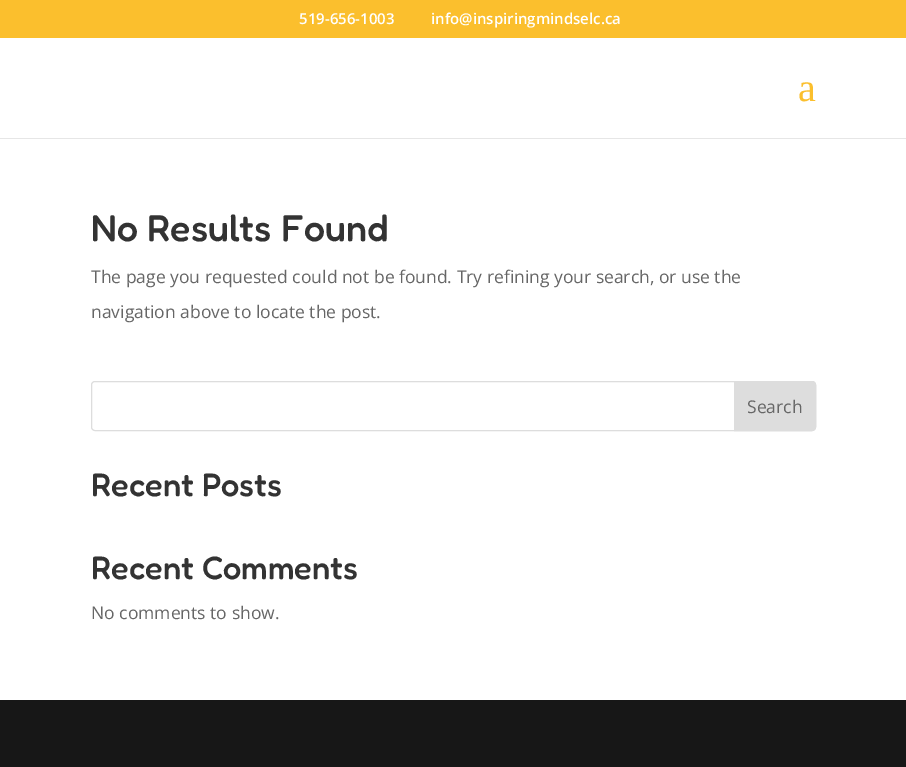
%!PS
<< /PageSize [906 767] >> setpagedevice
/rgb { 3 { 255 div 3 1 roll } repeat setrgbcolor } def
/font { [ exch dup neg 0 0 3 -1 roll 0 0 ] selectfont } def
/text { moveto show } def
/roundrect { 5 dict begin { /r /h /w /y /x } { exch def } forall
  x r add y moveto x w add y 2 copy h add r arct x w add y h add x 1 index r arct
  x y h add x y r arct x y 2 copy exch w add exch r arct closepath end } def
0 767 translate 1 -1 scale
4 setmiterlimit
255 255 255 rgb
0 0 906 767 rectfill
251 191 45 rgb
0 0 906 38 rectfill
230 230 230 rgb
0 138 906 1 rectfill
221 221 221 rgb
91.5 381.5 724 49 3.5 roundrect stroke
734.5 381.5 moveto 77.5 0 rlineto 2 0 3.5 1.5 3.5 3.5 rcurveto 0 42 rlineto 0 2 -1.5 3.5 -3.5 3.5 rcurveto -77.5 0 rlineto closepath gsave fill grestore
stroke
23 23 23 rgb
0 700 906 67 rectfill
/OpenSans-SemiBold 15 font
255 255 255 rgb
(519-656-1003) 299 24 text
(info@inspiringmindselc.ca) 431 24 text
/LiberationSerif-Regular 40 font
251 191 45 rgb
(a) 798 101 text
/Fredoka-Medium 37.5 font
51 51 51 rgb
(No Results Found) 91 241 text
/OpenSans-Regular 17.5 font
102 102 102 rgb
(The page you requested could not be found. Try refining your search, or use the) 91 283 text
(navigation above to locate the post.) 91 318 text
(Search) 747 413 text
/Fredoka-Medium 32.5 font
51 51 51 rgb
(Recent Posts) 91 496 text
(Recent Comments) 91 579 text
/OpenSans-Regular 17.5 font
102 102 102 rgb
(No comments to show.) 91 619 text
showpage
